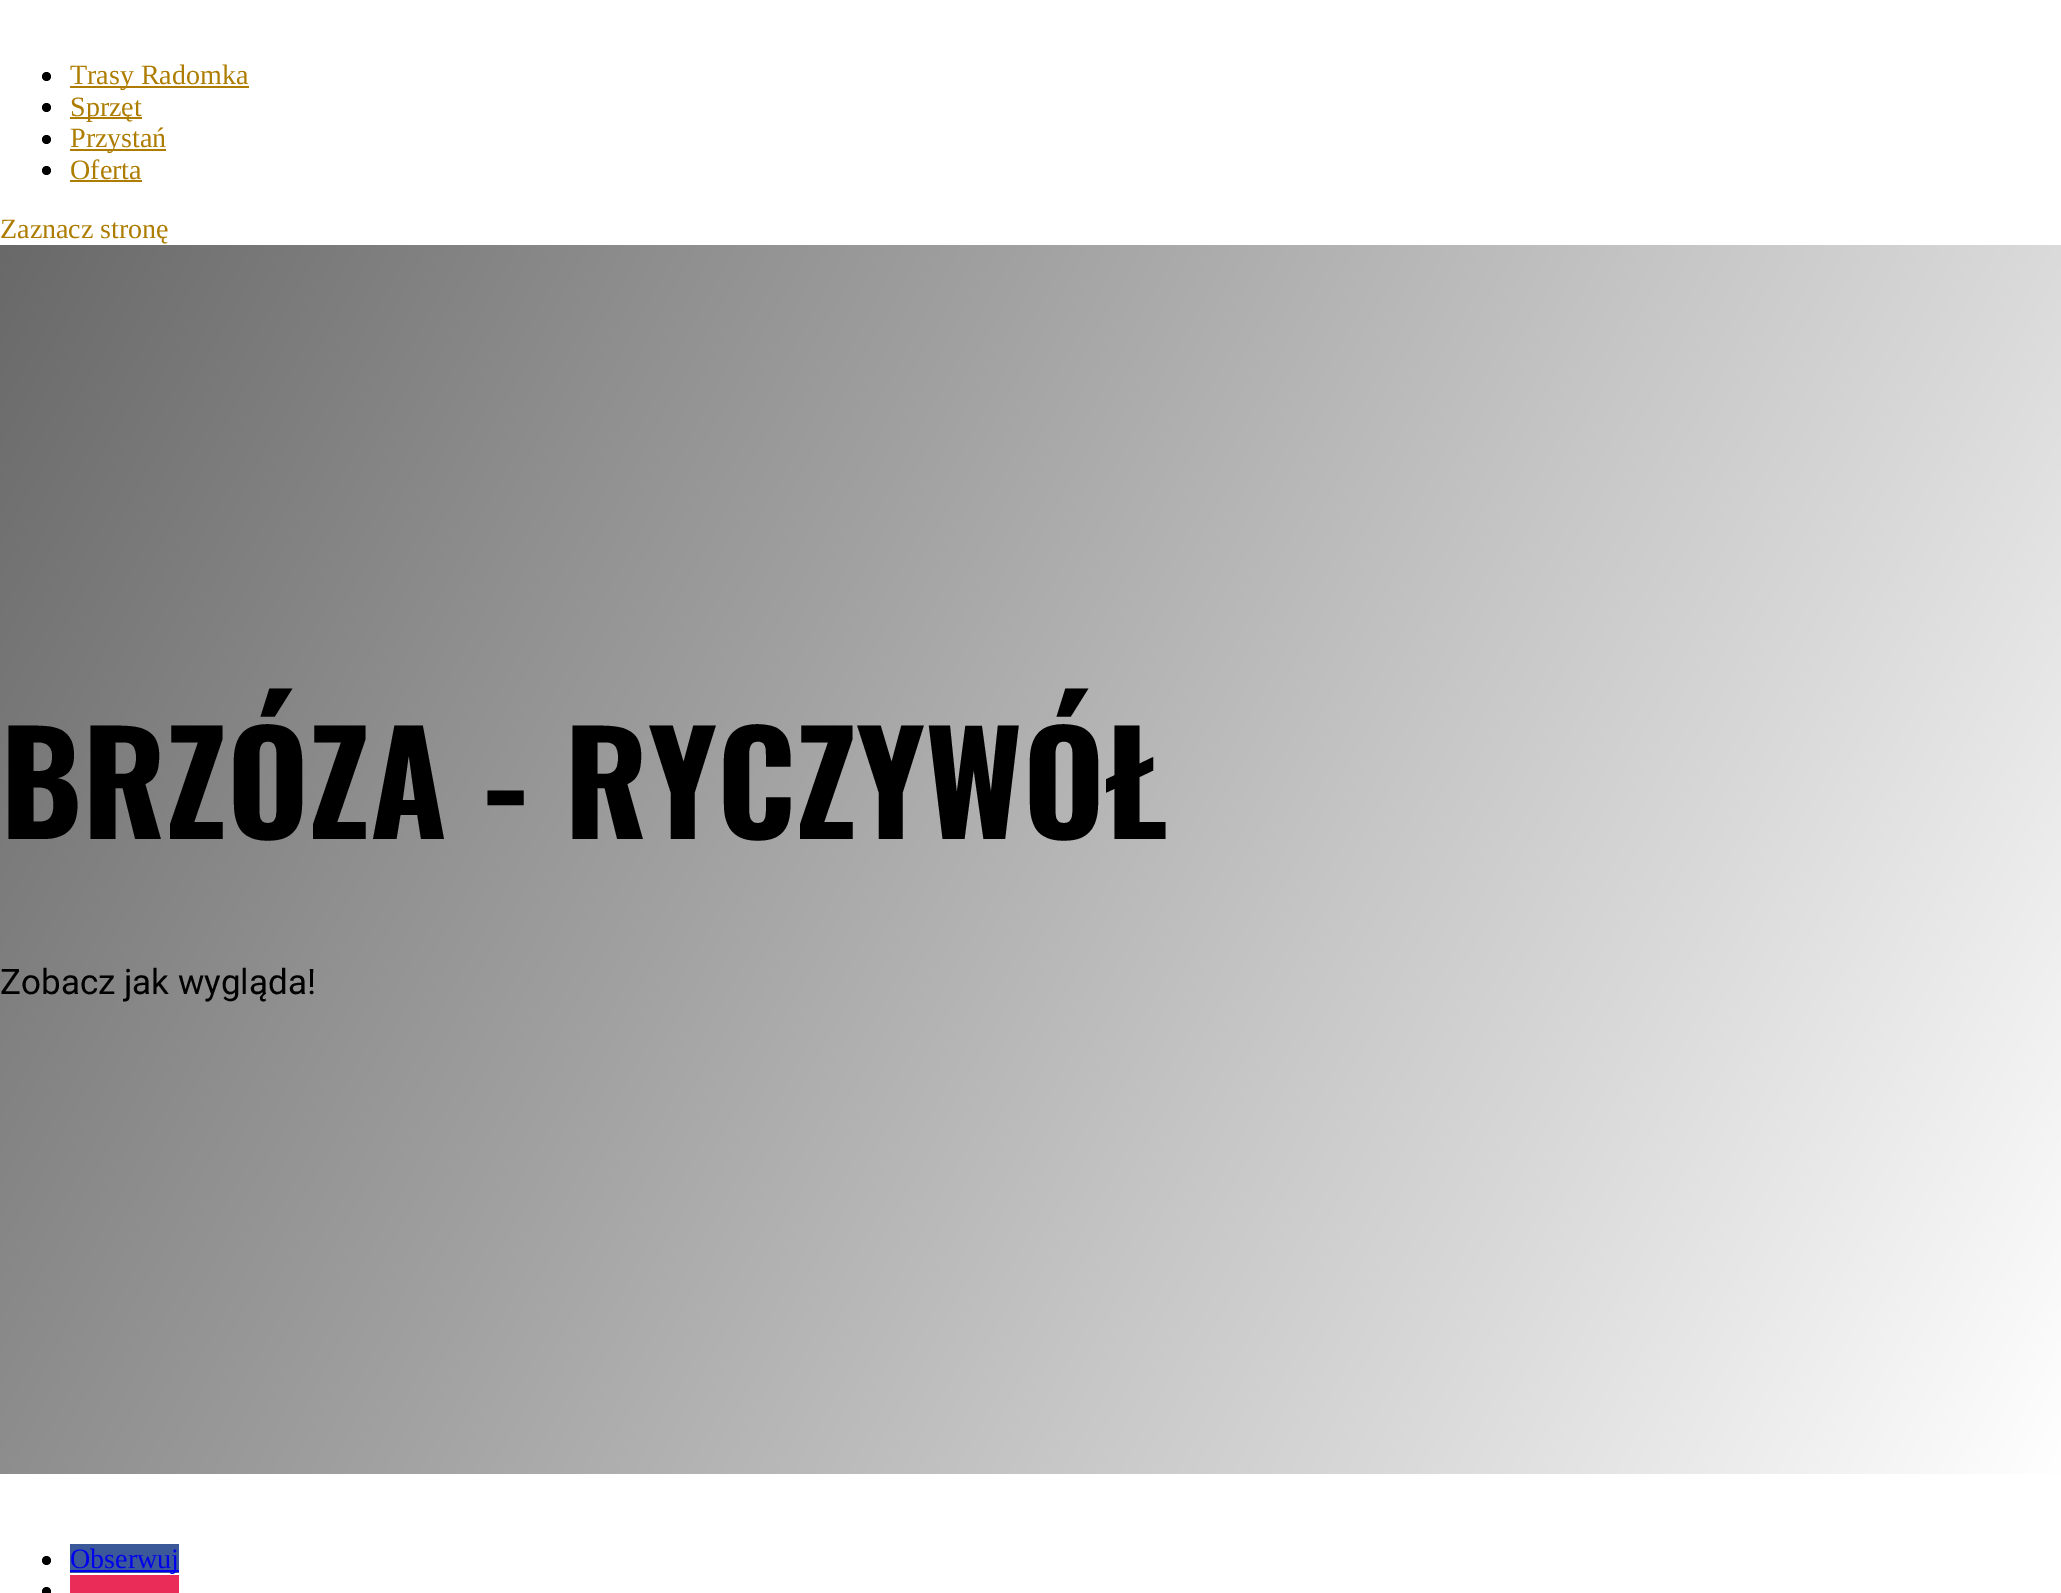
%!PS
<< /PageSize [2061 1593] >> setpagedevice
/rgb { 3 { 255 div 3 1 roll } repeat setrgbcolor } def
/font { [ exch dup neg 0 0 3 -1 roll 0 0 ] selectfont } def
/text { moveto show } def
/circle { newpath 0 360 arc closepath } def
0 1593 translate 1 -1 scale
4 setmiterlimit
255 255 255 rgb
0 0 2061 1593 rectfill
0 0 0 rgb
46.5 76.5 4.5 circle fill
173 124 0 rgb
70 86 179 2 rectfill
0 0 0 rgb
46.5 107.5 4.5 circle fill
173 124 0 rgb
70 117 72 2 rectfill
0 0 0 rgb
46.5 139.5 4.5 circle fill
173 124 0 rgb
70 149 96 2 rectfill
0 0 0 rgb
46.5 170.5 4.5 circle fill
173 124 0 rgb
70 180 72 2 rectfill
gsave 0 245 moveto 2061 0 rlineto 0 1229 rlineto -2061 0 rlineto closepath clip newpath
<< /ShadingType 2 /ColorSpace /DeviceRGB /Coords [-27 297 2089 1422] /Extend [true true] /Function << /FunctionType 2 /Domain [0 1] /C0 [0.412 0.412 0.412] /C1 [1 1 1] /N 1 >> >> shfill grestore
0 0 0 rgb
46.5 1560.5 4.5 circle fill
59 89 152 rgb
70 1544 109 29 rectfill
0 0 238 rgb
70 1570 109 2 rectfill
0 0 0 rgb
46.5 1591.5 4.5 circle fill
234 44 89 rgb
70 1575 109 18 rectfill
/LiberationSerif-Regular 28 font
173 124 0 rgb
(Trasy Radomka) 70 84 text
(Sprzęt) 70 116 text
(Przystań) 70 147 text
(Oferta) 70 179 text
(Zaznacz stronę) 0 238 text
/Oswald-Bold 140 font
0 0 0 rgb
(BRZÓZA - RYCZYWÓŁ) 0 839 text
/Roboto-Regular 35 font
(Zobacz jak wygląda!) 0 994 text
/LiberationSerif-Regular 28 font
0 0 238 rgb
(Obserwuj) 70 1568 text
showpage
